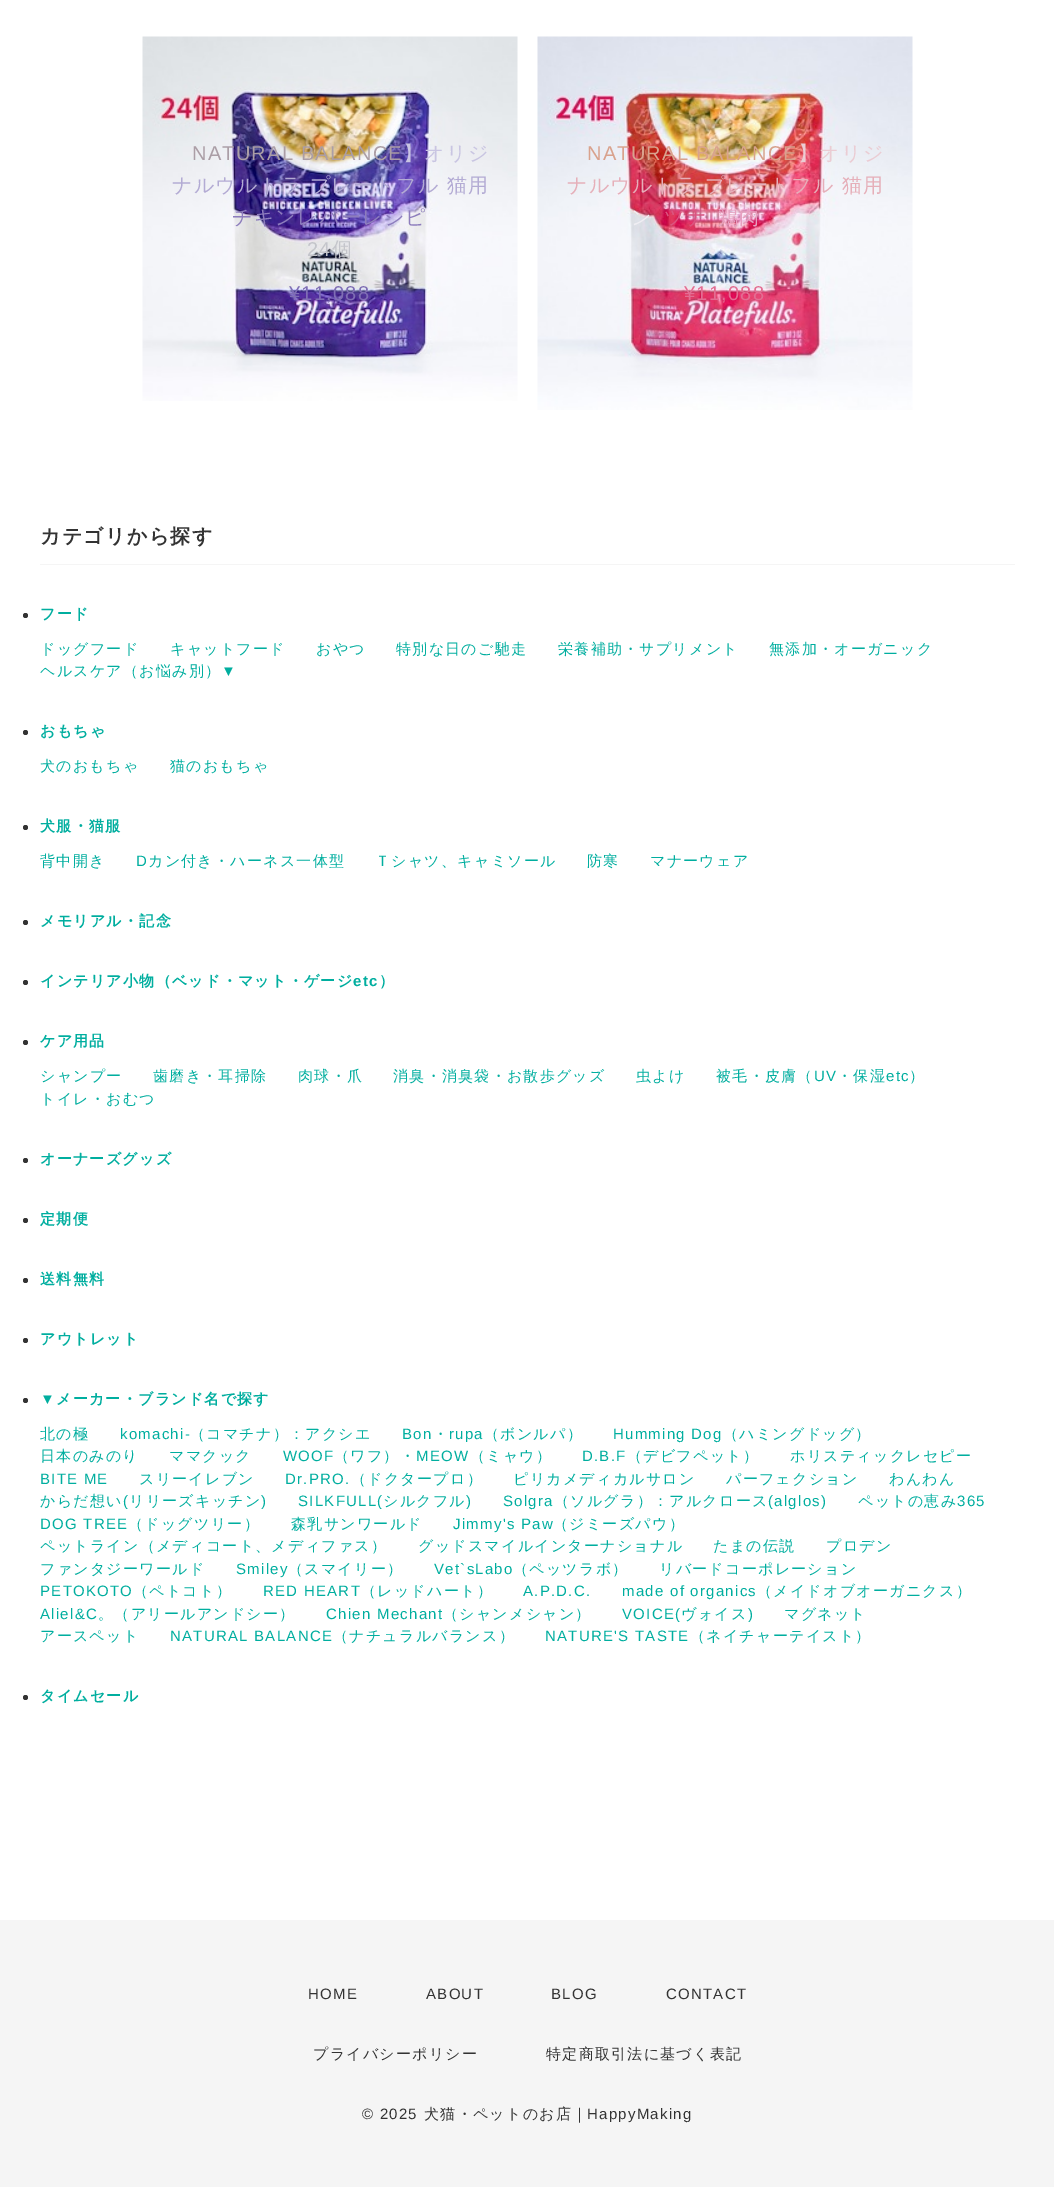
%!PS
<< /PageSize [1054 2187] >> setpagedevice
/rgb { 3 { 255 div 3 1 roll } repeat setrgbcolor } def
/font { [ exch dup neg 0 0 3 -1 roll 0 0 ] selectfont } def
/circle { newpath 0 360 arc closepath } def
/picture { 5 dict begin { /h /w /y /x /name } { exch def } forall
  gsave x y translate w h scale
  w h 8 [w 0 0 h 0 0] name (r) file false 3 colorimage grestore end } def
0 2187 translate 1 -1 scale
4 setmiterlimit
255 255 255 rgb
0 0 1054 2187 rectfill
(img_01.rgb) 142 36 376 365 picture
(img_02.rgb) 537 36 376 374 picture
245 245 245 rgb
40 564 975 1 rectfill
51 51 51 rgb
25.5 615.5 2.5 circle fill
25.5 732.5 2.5 circle fill
25.5 827.5 2.5 circle fill
25.5 922.5 2.5 circle fill
25.5 982.5 2.5 circle fill
25.5 1042.5 2.5 circle fill
25.5 1160.5 2.5 circle fill
25.5 1220.5 2.5 circle fill
25.5 1280.5 2.5 circle fill
25.5 1340.5 2.5 circle fill
25.5 1400.5 2.5 circle fill
25.5 1697.5 2.5 circle fill
245 245 245 rgb
0 1920 1054 267 rectfill
/LiberationSans-Regular 20 font
171 158 166 rgb
192 160 moveto 1.25 0 (NATURAL BALANCE) ashow
/WenQuanYiZenHei-Medium 20 font
201 197 226 rgb
403 160 moveto 1.25 0 (】オリジ) ashow
179 171 212 rgb
172 192 moveto 1.25 0 (ナルウルトラ プレートフル 猫用) ashow
141 125 189 rgb
232 224 moveto 1.25 0 (チキンレバーレシピ) ashow
/LiberationSans-Regular 20 font
196 197 203 rgb
307 256 moveto 1.25 0 (24) ashow
/WenQuanYiZenHei-Medium 20 font
332 256 moveto 1.25 0 (個) ashow
/LiberationSans-Regular 20 font
127 110 180 rgb
289 300 moveto 1.25 0 (¥11,088) ashow
217 162 141 rgb
587 160 moveto 1.25 0 (NATURAL BALANCE) ashow
/WenQuanYiZenHei-Medium 20 font
235 204 211 rgb
798 160 moveto 1.25 0 (】オリジ) ashow
230 175 185 rgb
567 192 moveto 1.25 0 (ナルウルトラ プレートフル 猫用) ashow
240 238 243 rgb
631 224 moveto 1.25 0 (ン) ashow
219 85 128 rgb
664 224 moveto 1.25 0 (ツナ) ashow
231 160 191 rgb
718 224 moveto 1.25 0 (鶏肉) ashow
/LiberationSans-Regular 20 font
227 109 146 rgb
684 300 moveto 1.25 0 (¥11,088) ashow
/WenQuanYiZenHei-Bold 20 font
51 51 51 rgb
40 543 moveto 1.25 0 (カテゴリから探す) ashow
/WenQuanYiZenHei-Bold 15 font
0 174 159 rgb
40 619 moveto 1.25 0 (フード) ashow
/WenQuanYiZenHei-Medium 15 font
40 654 moveto 1.25 0 (ドッグフード) ashow
170 654 moveto 1.25 0 (キャットフード) ashow
316 654 moveto 1.25 0 (おやつ) ashow
396 654 moveto 1.25 0 (特別な日のご馳走) ashow
558 654 moveto 1.25 0 (栄養補助・サプリメント) ashow
769 654 moveto 1.25 0 (無添加・オーガニック) ashow
40 676 moveto 1.25 0 (ヘルスケア（お悩み別）) ashow
/LiberationSans-Regular 15 font
221 676 moveto 1.25 0 (▼) ashow
/WenQuanYiZenHei-Bold 15 font
40 736 moveto 1.25 0 (おもちゃ) ashow
/WenQuanYiZenHei-Medium 15 font
40 771 moveto 1.25 0 (犬のおもちゃ) ashow
170 771 moveto 1.25 0 (猫のおもちゃ) ashow
/WenQuanYiZenHei-Bold 15 font
40 831 moveto 1.25 0 (犬服・猫服) ashow
/WenQuanYiZenHei-Medium 15 font
40 866 moveto 1.25 0 (背中開き) ashow
/LiberationSans-Regular 15 font
136 866 moveto 1.25 0 (D) ashow
/WenQuanYiZenHei-Medium 15 font
148 866 moveto 1.25 0 (カン付き・ハーネス一体型) ashow
375 866 moveto 1.25 0 (Ｔシャツ、キャミソール) ashow
587 866 moveto 1.25 0 (防寒) ashow
650 866 moveto 1.25 0 (マナーウェア) ashow
/WenQuanYiZenHei-Bold 15 font
40 926 moveto 1.25 0 (メモリアル・記念) ashow
40 986 moveto 1.25 0 (インテリア小物（ベッド・マット・ゲージ) ashow
/LiberationSans-Bold 15 font
353 986 moveto 1.25 0 (etc) ashow
/WenQuanYiZenHei-Bold 15 font
379 986 moveto 1.25 0 (）) ashow
40 1046 moveto 1.25 0 (ケア用品) ashow
/WenQuanYiZenHei-Medium 15 font
40 1081 moveto 1.25 0 (シャンプー) ashow
153 1081 moveto 1.25 0 (歯磨き・耳掃除) ashow
298 1081 moveto 1.25 0 (肉球・爪) ashow
393 1081 moveto 1.25 0 (消臭・消臭袋・お散歩グッズ) ashow
636 1081 moveto 1.25 0 (虫よけ) ashow
716 1081 moveto 1.25 0 (被毛・皮膚（) ashow
/LiberationSans-Regular 15 font
814 1081 moveto 1.25 0 (UV) ashow
/WenQuanYiZenHei-Medium 15 font
837 1081 moveto 1.25 0 (・保湿) ashow
/LiberationSans-Regular 15 font
886 1081 moveto 1.25 0 (etc) ashow
/WenQuanYiZenHei-Medium 15 font
909 1081 moveto 1.25 0 (）) ashow
40 1104 moveto 1.25 0 (トイレ・おむつ) ashow
/WenQuanYiZenHei-Bold 15 font
40 1164 moveto 1.25 0 (オーナーズグッズ) ashow
40 1224 moveto 1.25 0 (定期便) ashow
40 1284 moveto 1.25 0 (送料無料) ashow
40 1344 moveto 1.25 0 (アウトレット) ashow
/LiberationSans-Bold 15 font
40 1404 moveto 1.25 0 (▼) ashow
/WenQuanYiZenHei-Bold 15 font
56 1404 moveto 1.25 0 (メーカー・ブランド名で探す) ashow
/WenQuanYiZenHei-Medium 15 font
40 1439 moveto 1.25 0 (北の極) ashow
/LiberationSans-Regular 15 font
120 1439 moveto 1.25 0 (komachi-) ashow
/WenQuanYiZenHei-Medium 15 font
190 1439 moveto 1.25 0 (（コマチナ）：アクシエ) ashow
/LiberationSans-Regular 15 font
402 1439 moveto 1.25 0 (Bon) ashow
/WenQuanYiZenHei-Medium 15 font
433 1439 moveto 1.25 0 (・) ashow
/LiberationSans-Regular 15 font
449 1439 moveto 1.25 0 (rupa) ashow
/WenQuanYiZenHei-Medium 15 font
484 1439 moveto 1.25 0 (（ボンルパ）) ashow
/LiberationSans-Regular 15 font
613 1439 moveto 1.25 0 (Humming Dog) ashow
/WenQuanYiZenHei-Medium 15 font
723 1439 moveto 1.25 0 (（ハミングドッグ）) ashow
40 1461 moveto 1.25 0 (日本のみのり) ashow
169 1461 moveto 1.25 0 (ママクック) ashow
/LiberationSans-Regular 15 font
283 1461 moveto 1.25 0 (WOOF) ashow
/WenQuanYiZenHei-Medium 15 font
334 1461 moveto 1.25 0 (（ワフ）・) ashow
/LiberationSans-Regular 15 font
416 1461 moveto 1.25 0 (MEOW) ashow
/WenQuanYiZenHei-Medium 15 font
470 1461 moveto 1.25 0 (（ミャウ）) ashow
/LiberationSans-Regular 15 font
582 1461 moveto 1.25 0 (D.B.F) ashow
/WenQuanYiZenHei-Medium 15 font
627 1461 moveto 1.25 0 (（デビフペット）) ashow
790 1461 moveto 1.25 0 (ホリスティックレセピー) ashow
/LiberationSans-Regular 15 font
40 1484 moveto 1.25 0 (BITE ME) ashow
/WenQuanYiZenHei-Medium 15 font
139 1484 moveto 1.25 0 (スリーイレブン) ashow
/LiberationSans-Regular 15 font
285 1484 moveto 1.25 0 (Dr.PRO.) ashow
/WenQuanYiZenHei-Medium 15 font
351 1484 moveto 1.25 0 (（ドクタープロ）) ashow
513 1484 moveto 1.25 0 (ピリカメディカルサロン) ashow
726 1484 moveto 1.25 0 (パーフェクション) ashow
889 1484 moveto 1.25 0 (わんわん) ashow
40 1506 moveto 1.25 0 (からだ想い) ashow
/LiberationSans-Regular 15 font
123 1506 moveto 1.25 0 (\() ashow
/WenQuanYiZenHei-Medium 15 font
129 1506 moveto 1.25 0 (リリーズキッチン) ashow
/LiberationSans-Regular 15 font
261 1506 moveto 1.25 0 (\)) ashow
298 1506 moveto 1.25 0 (SILKFULL\() ashow
/WenQuanYiZenHei-Medium 15 font
383 1506 moveto 1.25 0 (シルクフル) ashow
/LiberationSans-Regular 15 font
466 1506 moveto 1.25 0 (\)) ashow
503 1506 moveto 1.25 0 (Solgra) ashow
/WenQuanYiZenHei-Medium 15 font
554 1506 moveto 1.25 0 (（ソルグラ）：アルクロース) ashow
/LiberationSans-Regular 15 font
768 1506 moveto 1.25 0 (\(alglos\)) ashow
/WenQuanYiZenHei-Medium 15 font
858 1506 moveto 1.25 0 (ペットの恵み) ashow
/LiberationSans-Regular 15 font
957 1506 moveto 1.25 0 (365) ashow
40 1529 moveto 1.25 0 (DOG TREE) ashow
/WenQuanYiZenHei-Medium 15 font
128 1529 moveto 1.25 0 (（ドッグツリー）) ashow
291 1529 moveto 1.25 0 (森乳サンワールド) ashow
/LiberationSans-Regular 15 font
453 1529 moveto 1.25 0 (Jimmy's Paw) ashow
/WenQuanYiZenHei-Medium 15 font
553 1529 moveto 1.25 0 (（ジミーズパウ）) ashow
40 1551 moveto 1.25 0 (ペットライン（メディコート、メディファス）) ashow
418 1551 moveto 1.25 0 (グッドスマイルインターナショナル) ashow
713 1551 moveto 1.25 0 (たまの伝説) ashow
826 1551 moveto 1.25 0 (プロデン) ashow
40 1574 moveto 1.25 0 (ファンタジーワールド) ashow
/LiberationSans-Regular 15 font
236 1574 moveto 1.25 0 (Smiley) ashow
/WenQuanYiZenHei-Medium 15 font
288 1574 moveto 1.25 0 (（スマイリー）) ashow
/LiberationSans-Regular 15 font
434 1574 moveto 1.25 0 (Vet`sLabo) ashow
/WenQuanYiZenHei-Medium 15 font
513 1574 moveto 1.25 0 (（ペッツラボ）) ashow
659 1574 moveto 1.25 0 (リバードコーポレーション) ashow
/LiberationSans-Regular 15 font
40 1596 moveto 1.25 0 (PETOKOTO) ashow
/WenQuanYiZenHei-Medium 15 font
133 1596 moveto 1.25 0 (（ペトコト）) ashow
/LiberationSans-Regular 15 font
263 1596 moveto 1.25 0 (RED HEART) ashow
/WenQuanYiZenHei-Medium 15 font
361 1596 moveto 1.25 0 (（レッドハート）) ashow
/LiberationSans-Regular 15 font
523 1596 moveto 1.25 0 (A.P.D.C.) ashow
622 1596 moveto 1.25 0 (made of organics) ashow
/WenQuanYiZenHei-Medium 15 font
757 1596 moveto 1.25 0 (（メイドオブオーガニクス）) ashow
/LiberationSans-Regular 15 font
40 1619 moveto 1.25 0 (Aliel&C) ashow
/WenQuanYiZenHei-Medium 15 font
98 1619 moveto 1.25 0 (。（アリールアンドシー）) ashow
/LiberationSans-Regular 15 font
326 1619 moveto 1.25 0 (Chien Mechant) ashow
/WenQuanYiZenHei-Medium 15 font
443 1619 moveto 1.25 0 (（シャンメシャン）) ashow
/LiberationSans-Regular 15 font
622 1619 moveto 1.25 0 (VOICE\() ashow
/WenQuanYiZenHei-Medium 15 font
681 1619 moveto 1.25 0 (ヴォイス) ashow
/LiberationSans-Regular 15 font
748 1619 moveto 1.25 0 (\)) ashow
/WenQuanYiZenHei-Medium 15 font
784 1619 moveto 1.25 0 (マグネット) ashow
40 1641 moveto 1.25 0 (アースペット) ashow
/LiberationSans-Regular 15 font
170 1641 moveto 1.25 0 (NATURAL BALANCE) ashow
/WenQuanYiZenHei-Medium 15 font
333 1641 moveto 1.25 0 (（ナチュラルバランス）) ashow
/LiberationSans-Regular 15 font
545 1641 moveto 1.25 0 (NATURE'S TASTE) ashow
/WenQuanYiZenHei-Medium 15 font
690 1641 moveto 1.25 0 (（ネイチャーテイスト）) ashow
/WenQuanYiZenHei-Bold 15 font
40 1701 moveto 1.25 0 (タイムセール) ashow
/LiberationSans-Regular 15 font
51 51 51 rgb
308 1999 moveto 1.25 0 (HOME) ashow
426 1999 moveto 1.25 0 (ABOUT) ashow
551 1999 moveto 1.25 0 (BLOG) ashow
666 1999 moveto 1.25 0 (CONTACT) ashow
/WenQuanYiZenHei-Medium 15 font
313 2059 moveto 1.25 0 (プライバシーポリシー) ashow
546 2059 moveto 1.25 0 (特定商取引法に基づく表記) ashow
/LiberationSans-Regular 15 font
362 2119 moveto 1.25 0 (© 2025) ashow
/WenQuanYiZenHei-Medium 15 font
424 2119 moveto 1.25 0 (犬猫・ペットのお店｜) ashow
/LiberationSans-Regular 15 font
587 2119 moveto 1.25 0 (HappyMaking) ashow
showpage
